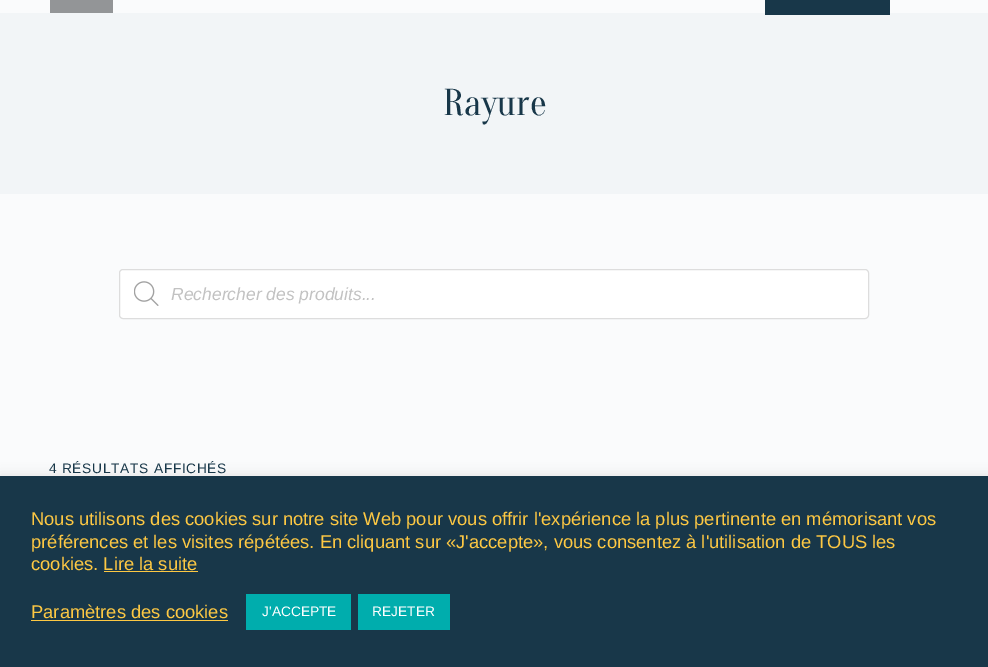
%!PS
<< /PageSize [988 667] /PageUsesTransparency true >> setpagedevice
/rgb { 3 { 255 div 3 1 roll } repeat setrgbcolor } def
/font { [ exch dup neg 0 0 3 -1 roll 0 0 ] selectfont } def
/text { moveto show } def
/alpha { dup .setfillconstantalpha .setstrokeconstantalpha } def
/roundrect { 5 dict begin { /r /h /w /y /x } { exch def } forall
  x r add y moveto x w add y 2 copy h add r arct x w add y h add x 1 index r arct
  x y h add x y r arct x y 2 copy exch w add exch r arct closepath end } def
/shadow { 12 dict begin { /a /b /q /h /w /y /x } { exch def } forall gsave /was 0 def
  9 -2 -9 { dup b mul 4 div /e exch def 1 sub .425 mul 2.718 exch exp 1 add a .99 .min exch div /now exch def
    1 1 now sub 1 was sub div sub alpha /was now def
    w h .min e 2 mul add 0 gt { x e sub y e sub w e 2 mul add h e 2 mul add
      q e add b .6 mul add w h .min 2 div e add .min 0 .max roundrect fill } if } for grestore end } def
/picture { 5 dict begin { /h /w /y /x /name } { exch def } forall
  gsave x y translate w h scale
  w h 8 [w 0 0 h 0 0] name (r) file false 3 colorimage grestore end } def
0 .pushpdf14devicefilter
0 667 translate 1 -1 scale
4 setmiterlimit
250 251 252 rgb
0 0 988 667 rectfill
242 245 247 rgb
0 13 988 181 rectfill
24 55 73 rgb
765 0 125 15 rectfill
147 149 151 rgb
50 0 63 13 rectfill
255 255 255 rgb
119.5 269.5 749 49 3.5 roundrect gsave fill grestore
221 221 221 rgb
stroke
(img_01.rgb) 134 281 25 25 picture
172 171 171 rgb
0 475 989 191 0 6 0.3 shadow
24 55 73 rgb
0 476 988 191 rectfill
253 200 67 rgb
104 571 94 1 rectfill
31 620 197 1 rectfill
0 173 173 rgb
246 594 105 36 rectfill
358 594 92 36 rectfill
/Oranienbaum-Regular 37.5 font
24 55 73 rgb
(Rayure) 443 115 text
/LiberationSans-Italic 17.5 font
194 194 194 rgb
(Rechercher des produits...) 171 300 text
/LiberationSans-Regular 13.75 font
24 55 73 rgb
49 473 moveto 0.7 0 (4 RÉSULTATS AFFICHÉS) ashow
/LiberationSans-Regular 18.35 font
253 200 67 rgb
(Nous utilisons des cookies sur notre site Web pour vous offrir l'expérience la plus pertinente en mémorisant vos) 31 525 text
(préférences et les visites répétées. En cliquant sur «J'accepte», vous consentez à l'utilisation de TOUS les) 31 548 text
(cookies. Lire la suite) 31 570 text
(Paramètres des cookies) 31 618 text
/LiberationSans-Regular 13.75 font
255 255 255 rgb
(J'ACCEPTE) 262 616 text
(REJETER) 372 616 text
.poppdf14devicefilter showpage
